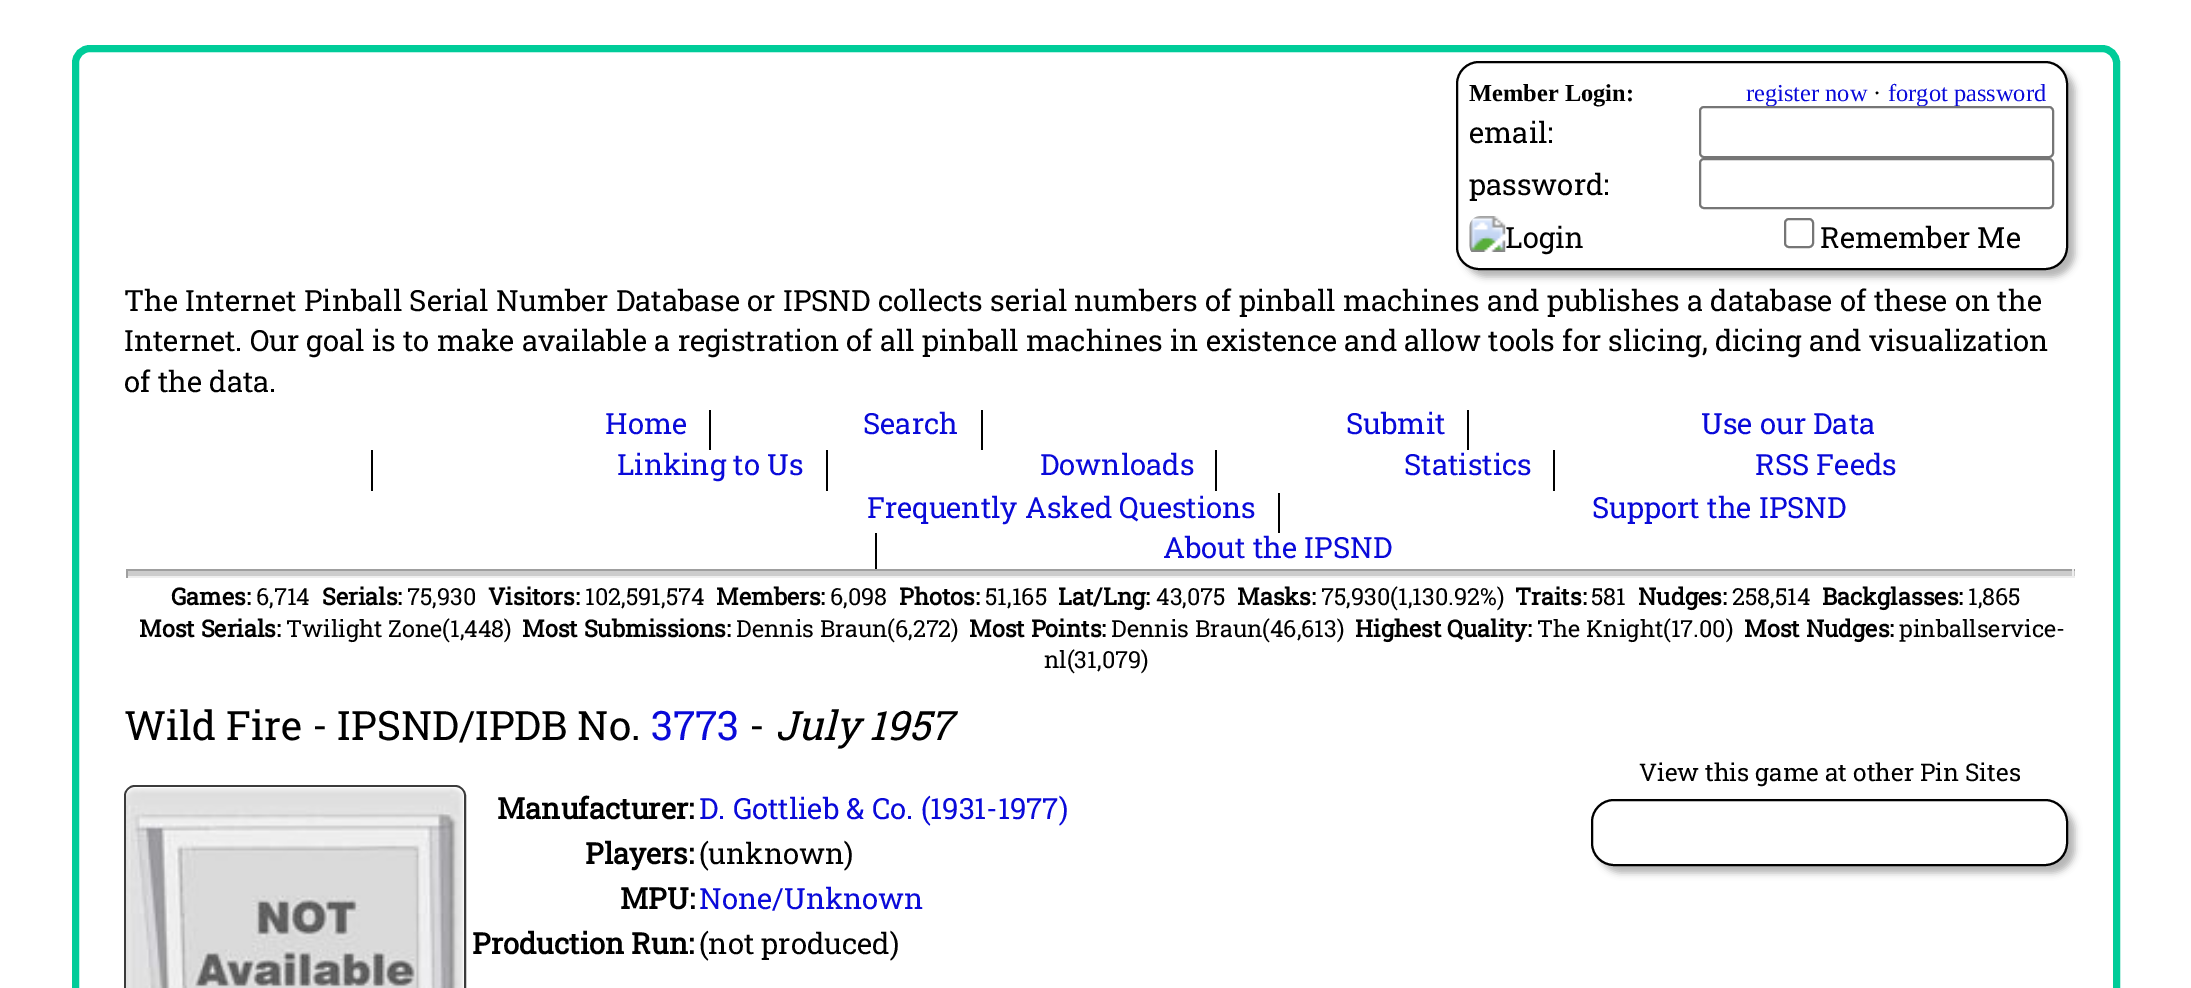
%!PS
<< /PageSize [2191 988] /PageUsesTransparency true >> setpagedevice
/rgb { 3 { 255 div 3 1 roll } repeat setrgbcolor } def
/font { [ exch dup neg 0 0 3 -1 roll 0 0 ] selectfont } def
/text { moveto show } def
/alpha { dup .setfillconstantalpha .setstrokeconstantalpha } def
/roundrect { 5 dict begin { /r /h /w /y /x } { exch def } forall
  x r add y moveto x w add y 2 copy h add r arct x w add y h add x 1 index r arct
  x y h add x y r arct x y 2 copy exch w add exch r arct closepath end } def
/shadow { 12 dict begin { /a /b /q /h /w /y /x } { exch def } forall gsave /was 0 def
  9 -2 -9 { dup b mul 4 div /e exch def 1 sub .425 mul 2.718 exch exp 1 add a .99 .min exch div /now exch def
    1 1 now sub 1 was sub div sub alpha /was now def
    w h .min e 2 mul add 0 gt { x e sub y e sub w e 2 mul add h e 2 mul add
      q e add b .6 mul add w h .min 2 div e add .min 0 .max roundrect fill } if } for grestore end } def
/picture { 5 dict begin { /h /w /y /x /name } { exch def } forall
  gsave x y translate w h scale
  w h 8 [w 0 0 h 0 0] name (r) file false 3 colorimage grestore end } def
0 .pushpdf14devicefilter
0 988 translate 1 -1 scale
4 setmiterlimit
255 255 255 rgb
0 0 2191 988 rectfill
0 204 153 rgb
7 setlinewidth
75.5 48.5 2041 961 14.5 roundrect stroke
gsave
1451 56 moveto 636 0 rlineto 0 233 rlineto -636 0 rlineto closepath 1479 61 moveto 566 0 rlineto 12.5 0 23 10.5 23 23 rcurveto 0 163 rlineto 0 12.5 -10.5 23 -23 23 rcurveto -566 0 rlineto -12.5 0 -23 -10.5 -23 -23 rcurveto 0 -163 rlineto 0 -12.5 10.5 -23 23 -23 rcurveto closepath eoclip newpath
179 179 179 rgb
1463 68 612 209 23 3.5 1 shadow
grestore
0 0 0 rgb
2 setlinewidth
1457 62 610 207 22 roundrect stroke
118 118 118 rgb
1700 159 353 49 4 roundrect stroke
(img_01.rgb) 1469 216 114 39 picture
1785 219 28 28 4 roundrect stroke
0 0 0 rgb
709 410 2 40 rectfill
981 410 2 40 rectfill
1467 410 2 40 rectfill
371 450 2 41 rectfill
826 450 2 41 rectfill
1215 450 2 41 rectfill
1553 450 2 41 rectfill
1278 493 2 40 rectfill
875 533 2 41 rectfill
204 204 204 rgb
128 571 1947 5 rectfill
159 159 159 rgb
126 569 1949 2 rectfill
238 238 238 rgb
2072 569 2 9 rectfill
126 576 1949 2 rectfill
159 159 159 rgb
126 569 2 9 rectfill
gsave
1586 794 moveto 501 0 rlineto 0 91 rlineto -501 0 rlineto closepath 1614 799 moveto 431 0 rlineto 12.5 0 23 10.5 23 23 rcurveto 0 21 rlineto 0 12.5 -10.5 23 -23 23 rcurveto -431 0 rlineto -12.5 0 -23 -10.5 -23 -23 rcurveto 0 -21 rlineto 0 -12.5 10.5 -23 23 -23 rcurveto closepath eoclip newpath
179 179 179 rgb
1598 806 477 67 23 3.5 1 shadow
grestore
0 0 0 rgb
1592 800 475 65 22 roundrect stroke
59 59 59 rgb
125 786 340 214 10 roundrect stroke
(img_02.rgb) 126 787 338 201 picture
/LiberationSerif-Bold 24.4 font
0 0 0 rgb
(Member Login:) 1469 101 text
/LiberationSerif-Regular 24.4 font
10 10 217 rgb
(register now) 1746 101 text
0 0 0 rgb
(·) 1873 101 text
10 10 217 rgb
(forgot password) 1888 101 text
/RobotoSlab-Regular 29.25 font
0 0 0 rgb
(email:) 1469 143 text
255 255 255 rgb
1700 107 353 50 4 roundrect gsave fill grestore
118 118 118 rgb
stroke
0 0 0 rgb
(password:) 1469 195 text
(Remember Me) 1820 248 text
(The Internet Pinball Serial Number Database or IPSND collects serial numbers of pinball machines and publishes a database of these on the) 124 311 text
(Internet. Our goal is to make available a registration of all pinball machines in existence and allow tools for slicing, dicing and visualization) 124 351 text
(of the data.) 124 392 text
10 10 217 rgb
(Home) 605 434 text
(Search) 863 434 text
(Submit) 1346 434 text
(Use our Data) 1701 434 text
(Linking to Us) 617 475 text
(Downloads) 1040 475 text
(Statistics) 1404 475 text
(RSS Feeds) 1755 475 text
(Frequently Asked Questions) 867 518 text
(Support the IPSND) 1592 518 text
(About the IPSND) 1163 558 text
/RobotoSlab-Bold 23.5 font
0 0 0 rgb
(Games:) 171 605 text
/RobotoSlab-Regular 23.5 font
(6,714) 256 605 text
/RobotoSlab-Bold 23.5 font
(Serials:) 322 605 text
/RobotoSlab-Regular 23.5 font
(75,930) 407 605 text
/RobotoSlab-Bold 23.5 font
(Visitors:) 488 605 text
/RobotoSlab-Regular 23.5 font
(102,591,574) 585 605 text
/RobotoSlab-Bold 23.5 font
(Members:) 716 605 text
/RobotoSlab-Regular 23.5 font
(6,098) 830 605 text
/RobotoSlab-Bold 23.5 font
(Photos:) 899 605 text
/RobotoSlab-Regular 23.5 font
(51,165) 985 605 text
/RobotoSlab-Bold 23.5 font
(Lat/Lng:) 1058 605 text
/RobotoSlab-Regular 23.5 font
(43,075) 1156 605 text
/RobotoSlab-Bold 23.5 font
(Masks:) 1237 605 text
/RobotoSlab-Regular 23.5 font
(75,930\(1,130.92%\)) 1321 605 text
/RobotoSlab-Bold 23.5 font
(Traits:) 1515 605 text
/RobotoSlab-Regular 23.5 font
(581) 1591 605 text
/RobotoSlab-Bold 23.5 font
(Nudges:) 1638 605 text
/RobotoSlab-Regular 23.5 font
(258,514) 1732 605 text
/RobotoSlab-Bold 23.5 font
(Backglasses:) 1822 605 text
/RobotoSlab-Regular 23.5 font
(1,865) 1968 605 text
/RobotoSlab-Bold 23.5 font
(Most Serials:) 139 637 text
/RobotoSlab-Regular 23.5 font
(Twilight Zone\(1,448\)) 286 637 text
/RobotoSlab-Bold 23.5 font
(Most Submissions:) 522 637 text
/RobotoSlab-Regular 23.5 font
(Dennis Braun\(6,272\)) 736 637 text
/RobotoSlab-Bold 23.5 font
(Most Points:) 969 637 text
/RobotoSlab-Regular 23.5 font
(Dennis Braun\(46,613\)) 1111 637 text
/RobotoSlab-Bold 23.5 font
(Highest Quality:) 1355 637 text
/RobotoSlab-Regular 23.5 font
(The Knight\(17.00\)) 1537 637 text
/RobotoSlab-Bold 23.5 font
(Most Nudges:) 1744 637 text
/RobotoSlab-Regular 23.5 font
(pinballservice-) 1899 637 text
(nl\(31,079\)) 1044 668 text
/RobotoSlab-Regular 40.5 font
(Wild Fire - IPSND/IPDB No.) 124 740 text
10 10 217 rgb
(3773) 651 740 text
0 0 0 rgb
(-) 749 740 text
/RobotoSlab-Italic 40.5 font
(July 1957) 775 740 text
/RobotoSlab-Regular 24.4 font
(View this game at other Pin Sites) 1639 781 text
/RobotoSlab-Bold 29.25 font
(Manufacturer:) 497 819 text
/RobotoSlab-Regular 29.25 font
10 10 217 rgb
(D. Gottlieb & Co. \(1931-1977\)) 699 819 text
/RobotoSlab-Bold 29.25 font
0 0 0 rgb
(Players:) 585 864 text
/RobotoSlab-Regular 29.25 font
(\(unknown\)) 699 864 text
/RobotoSlab-Bold 29.25 font
(MPU:) 620 909 text
/RobotoSlab-Regular 29.25 font
10 10 217 rgb
(None/Unknown) 699 909 text
/RobotoSlab-Bold 29.25 font
0 0 0 rgb
(Production Run:) 472 954 text
/RobotoSlab-Regular 29.25 font
(\(not produced\)) 699 954 text
.poppdf14devicefilter showpage
